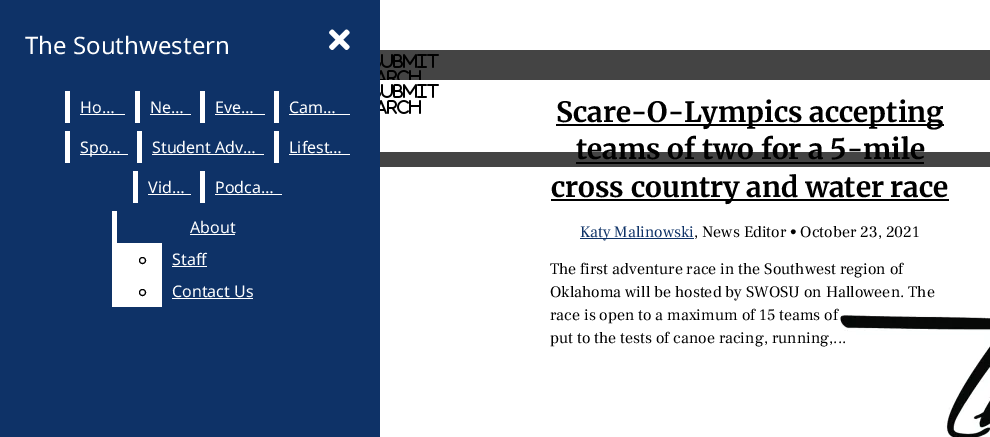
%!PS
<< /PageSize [990 437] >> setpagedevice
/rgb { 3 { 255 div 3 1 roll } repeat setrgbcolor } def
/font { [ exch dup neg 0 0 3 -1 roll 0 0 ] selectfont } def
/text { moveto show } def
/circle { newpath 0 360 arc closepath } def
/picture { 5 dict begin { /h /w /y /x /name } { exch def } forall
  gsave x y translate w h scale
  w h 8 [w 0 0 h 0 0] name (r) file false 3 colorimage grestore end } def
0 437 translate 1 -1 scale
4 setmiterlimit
255 255 255 rgb
0 0 990 437 rectfill
14 50 103 rgb
0 0 380 437 rectfill
(img_01.rgb) 329 29 21 21 picture
255 255 255 rgb
65 91 5 32 rectfill
80 114 45 1 rectfill
135 91 5 32 rectfill
150 114 41 1 rectfill
200 91 5 32 rectfill
215 114 50 1 rectfill
274 91 5 32 rectfill
289 114 61 1 rectfill
65 131 5 32 rectfill
80 154 48 1 rectfill
137 131 5 32 rectfill
152 154 112 1 rectfill
274 131 5 32 rectfill
289 154 61 1 rectfill
133 171 5 32 rectfill
148 194 43 1 rectfill
200 171 5 32 rectfill
215 194 67 1 rectfill
112 211 50 96 rectfill
14 50 103 rgb
117 211 45 32 rectfill
255 255 255 rgb
190 234 45 1 rectfill
0 0 0 rgb
142.5 260.5 3 circle stroke
255 255 255 rgb
172 266 35 1 rectfill
0 0 0 rgb
142.5 292.5 3 circle stroke
255 255 255 rgb
172 298 81 1 rectfill
(img_02.rgb) 380 84 59 14 picture
(img_03.rgb) 380 100 41 14 picture
68 68 68 rgb
380 50 610 30 rectfill
(img_04.rgb) 380 54 59 14 picture
(img_05.rgb) 380 70 41 10 picture
(img_06.rgb) 840 315 150 122 picture
380 152 610 15 rectfill
0 0 0 rgb
556 124 388 2 rectfill
576 162 348 2 rectfill
551 199 398 2 rectfill
14 50 103 rgb
580 238 114 1 rectfill
/NotoSans-Regular 24 font
255 255 255 rgb
(The Southwestern) 25 54 text
/NotoSans-Regular 16 font
(Ho…) 80 113 text
(Ne…) 150 113 text
(Eve…) 215 113 text
(Cam…) 289 113 text
(Spo…) 80 153 text
(Student Adv…) 152 153 text
(Lifest…) 289 153 text
(Vid…) 148 193 text
(Podca…) 215 193 text
(About) 190 233 text
(Staff) 172 265 text
(Contact Us) 172 297 text
/Merriweather-Bold 28 font
0 0 0 rgb
(Scare-O-Lympics accepting) 556 122 text
(teams of two for a 5-mile) 576 159 text
(cross country and water race) 551 197 text
/FrankRuhlLibre-Regular 16 font
14 50 103 rgb
(Katy Malinowski) 580 237 text
0 0 0 rgb
(, News Editor • October 23, 2021) 694 237 text
(The first adventure race in the Southwest region of) 550 274 text
(Oklahoma will be hosted by SWOSU on Halloween. The) 550 297 text
(race is open to a maximum of 15 teams of) 550 320 text
(put to the tests of canoe racing, running,...) 550 343 text
showpage
